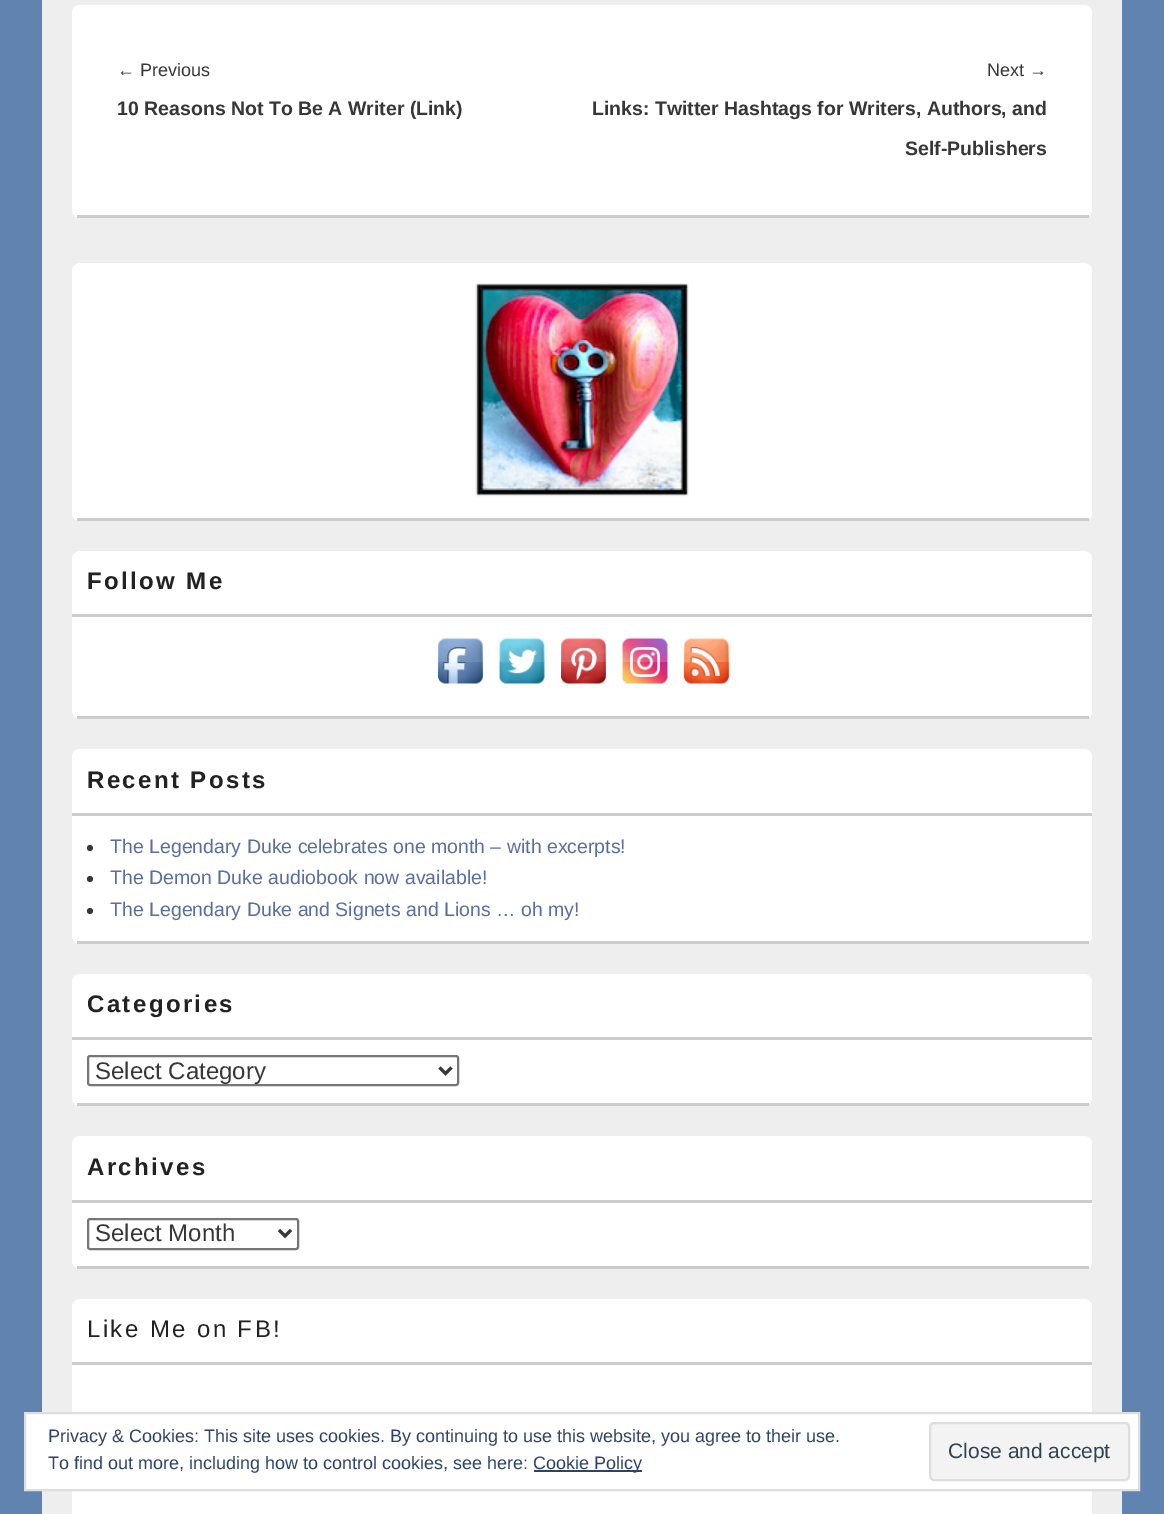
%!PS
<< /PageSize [1164 1514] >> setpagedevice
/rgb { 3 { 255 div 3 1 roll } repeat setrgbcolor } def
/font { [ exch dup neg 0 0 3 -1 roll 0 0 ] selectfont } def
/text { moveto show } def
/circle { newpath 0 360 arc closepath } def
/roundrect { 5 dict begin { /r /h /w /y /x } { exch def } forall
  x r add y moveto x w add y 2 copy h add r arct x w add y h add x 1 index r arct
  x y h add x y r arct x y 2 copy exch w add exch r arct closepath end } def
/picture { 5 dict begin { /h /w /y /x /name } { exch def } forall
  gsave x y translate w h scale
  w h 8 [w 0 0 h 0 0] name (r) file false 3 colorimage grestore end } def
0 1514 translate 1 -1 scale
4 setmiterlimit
96 131 176 rgb
0 0 1164 1514 rectfill
238 238 238 rgb
42 0 1080 1514 rectfill
255 255 255 rgb
72 5 1020 213 8 roundrect fill
204 204 204 rgb
77 215 1012 3 rectfill
255 255 255 rgb
72 263 1020 258 8 roundrect fill
204 204 204 rgb
77 518 1012 3 rectfill
(img_01.rgb) 475 283 214 214 picture
255 255 255 rgb
72 551 1020 168 8 roundrect fill
204 204 204 rgb
77 716 1012 3 rectfill
72 614 1020 3 rectfill
(img_02.rgb) 438 638 45 46 picture
(img_03.rgb) 499 638 46 46 picture
(img_04.rgb) 561 638 45 46 picture
(img_05.rgb) 622 638 46 46 picture
(img_06.rgb) 684 638 45 46 picture
255 255 255 rgb
72 749 1020 195 8 roundrect fill
204 204 204 rgb
77 941 1012 3 rectfill
72 813 1020 3 rectfill
55 55 55 rgb
90 848 3 circle fill
90 879 3 circle fill
90 911 3 circle fill
255 255 255 rgb
72 974 1020 132 8 roundrect fill
204 204 204 rgb
77 1103 1012 3 rectfill
72 1037 1020 3 rectfill
118 118 118 rgb
2 setlinewidth
88 1056 370 29 2 roundrect stroke
55 55 55 rgb
3 setlinewidth
439.5 1067.5 moveto 6 6 rlineto 6 -6 rlineto stroke
255 255 255 rgb
72 1136 1020 133 8 roundrect fill
204 204 204 rgb
77 1266 1012 3 rectfill
72 1200 1020 3 rectfill
118 118 118 rgb
2 setlinewidth
88 1219 210 30 2 roundrect stroke
55 55 55 rgb
3 setlinewidth
279 1230 moveto 6 6 rlineto 6 -6 rlineto stroke
255 255 255 rgb
72 1299 1020 131 8 roundrect fill
204 204 204 rgb
72 1362 1020 3 rectfill
255 255 255 rgb
72 1491 1020 23 rectfill
25 1413 moveto 1114 0 rlineto 0 77 rlineto -1114 0 rlineto closepath gsave fill grestore
222 222 222 rgb
2 setlinewidth
stroke
46 68 103 rgb
534 1470 108 2 rectfill
243 243 243 rgb
930 1423 199 57 4 roundrect gsave fill grestore
222 222 222 rgb
stroke
/LiberationSans-Regular 18 font
55 55 55 rgb
(← Previous) 117 76 text
/LiberationSans-Bold 19.5 font
(10 Reasons Not To Be A Writer \(Link\)) 117 115 text
/LiberationSans-Regular 18 font
(Next →) 987 76 text
/LiberationSans-Bold 19.5 font
(Links: Twitter Hashtags for Writers, Authors, and) 592 115 text
(Self-Publishers) 905 155 text
/LiberationSans-Bold 24 font
34 34 34 rgb
87 589 moveto 2.4 0 (Follow Me) ashow
87 788 moveto 2.4 0 (Recent Posts) ashow
/LiberationSans-Regular 19.5 font
88 111 160 rgb
(The Legendary Duke celebrates one month – with excerpts!) 110 853 text
(The Demon Duke audiobook now available!) 110 884 text
(The Legendary Duke and Signets and Lions … oh my!) 110 916 text
/LiberationSans-Bold 24 font
34 34 34 rgb
87 1012 moveto 2.4 0 (Categories) ashow
/LiberationSans-Regular 24 font
55 55 55 rgb
(Select Category) 95 1079 text
/LiberationSans-Bold 24 font
34 34 34 rgb
87 1175 moveto 2.4 0 (Archives) ashow
/LiberationSans-Regular 24 font
55 55 55 rgb
(Select Month) 95 1241 text
34 34 34 rgb
87 1337 moveto 2.4 0 (Like Me on FB!) ashow
/LiberationSans-Regular 18 font
46 68 103 rgb
(Privacy & Cookies: This site uses cookies. By continuing to use this website, you agree to their use.) 48 1442 text
(To find out more, including how to control cookies, see here:) 48 1469 text
(Cookie Policy) 533 1469 text
/LiberationSans-Regular 21 font
46 68 83 rgb
(Close and accept) 948 1458 text
showpage
